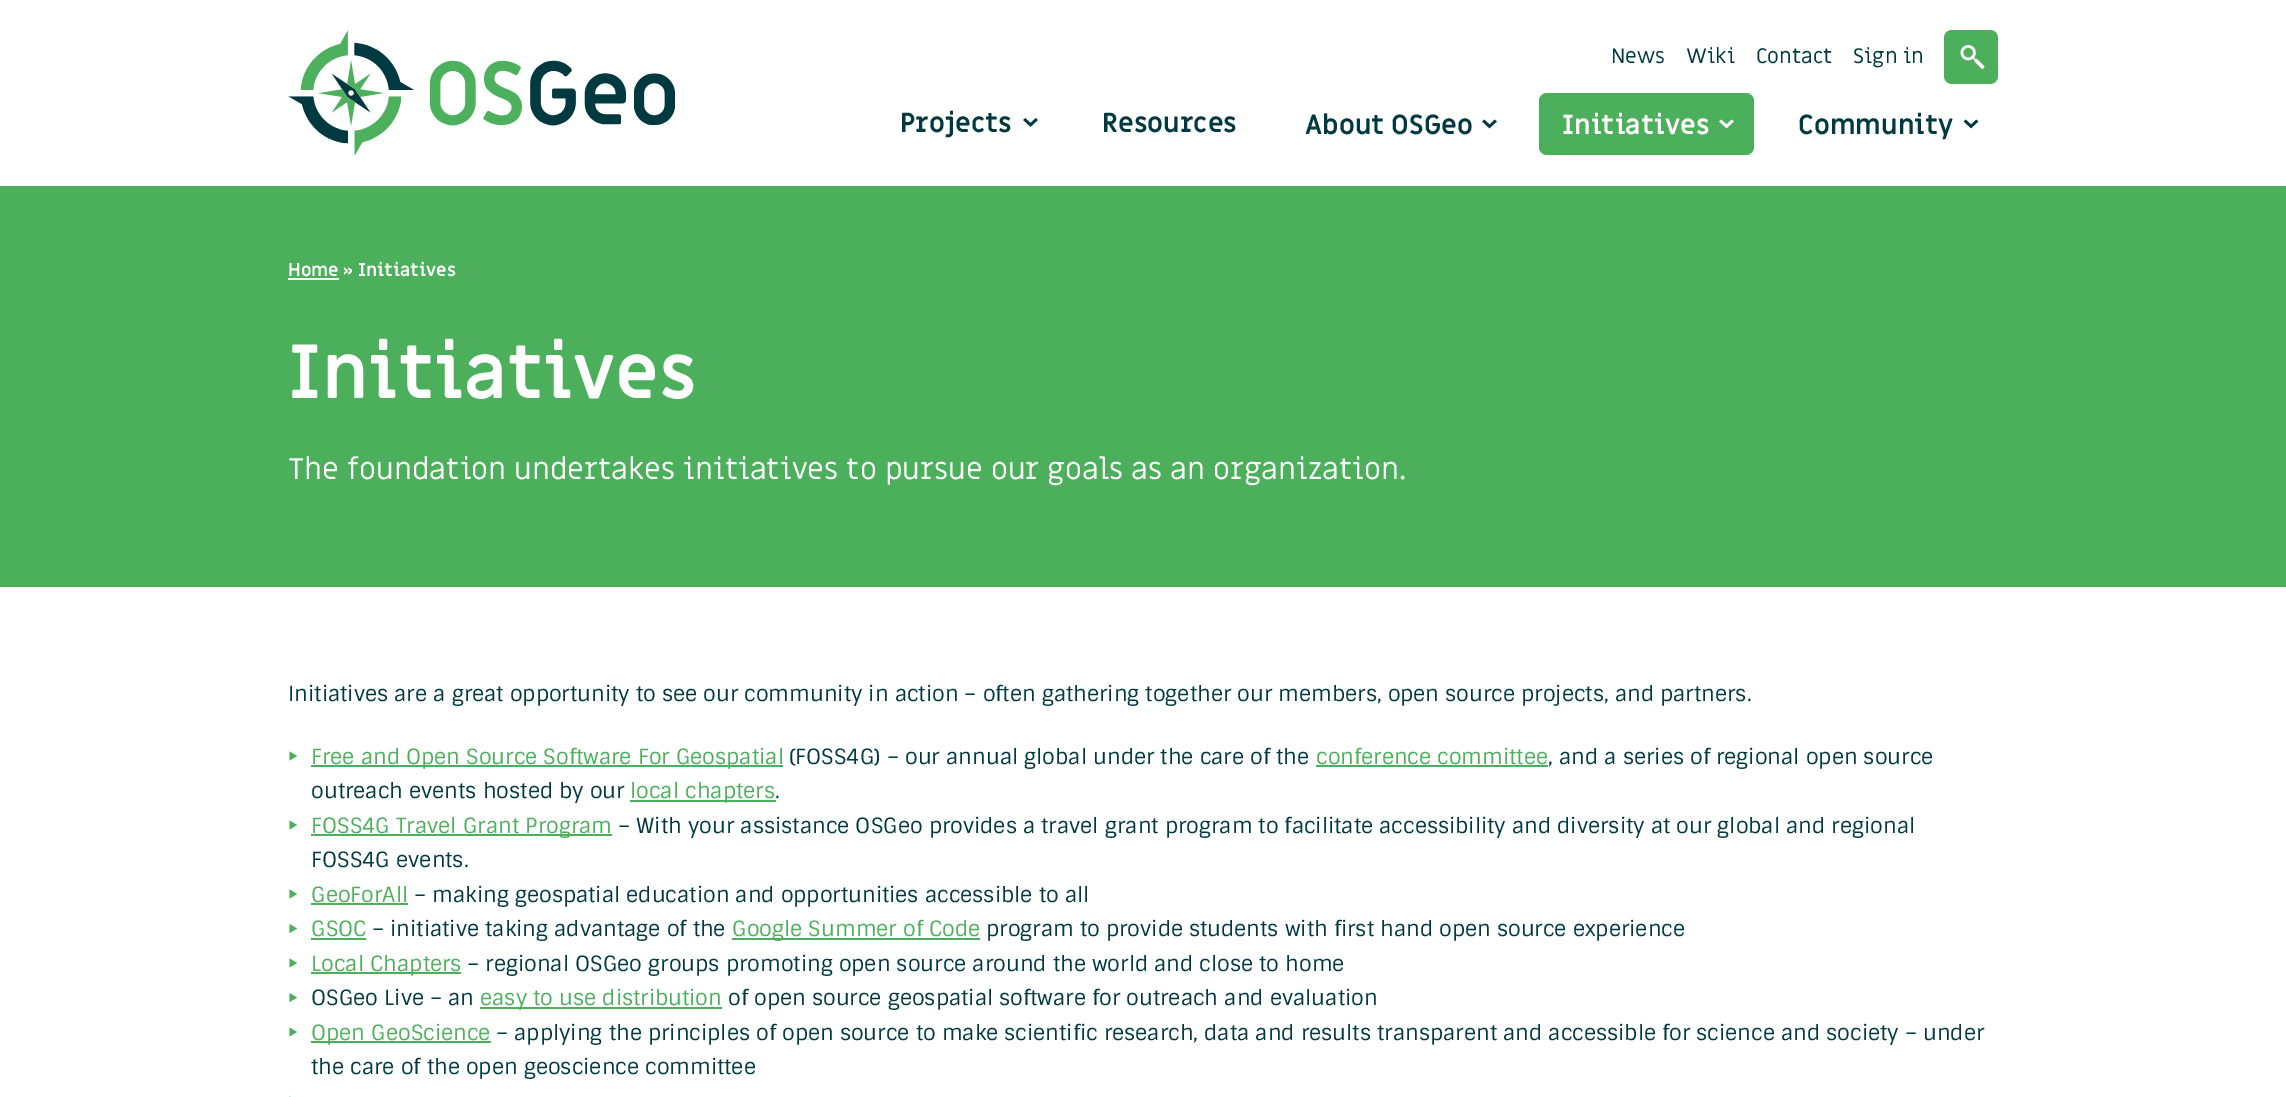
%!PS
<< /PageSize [2286 1097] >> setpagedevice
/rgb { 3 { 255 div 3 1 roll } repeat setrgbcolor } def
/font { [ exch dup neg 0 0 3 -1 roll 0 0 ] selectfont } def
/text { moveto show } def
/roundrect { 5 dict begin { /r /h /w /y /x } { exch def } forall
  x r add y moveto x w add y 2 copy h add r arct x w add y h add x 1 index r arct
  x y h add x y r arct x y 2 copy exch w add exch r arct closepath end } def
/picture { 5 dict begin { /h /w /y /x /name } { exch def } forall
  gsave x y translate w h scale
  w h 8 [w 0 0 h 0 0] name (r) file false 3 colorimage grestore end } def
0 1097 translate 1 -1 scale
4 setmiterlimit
255 255 255 rgb
0 0 2286 1097 rectfill
(img_01.rgb) 288 30 387 126 picture
76 175 91 rgb
1944 30 54 54 8 roundrect fill
(img_02.rgb) 1960 45 25 24 picture
(img_03.rgb) 1023 118 15 9 picture
(img_04.rgb) 1482 119 15 10 picture
1539 93 215 62 8 roundrect fill
(img_05.rgb) 1719 119 15 10 picture
(img_06.rgb) 1963 119 16 10 picture
0 186 2286 401 rectfill
255 255 255 rgb
288 278 51 2 rectfill
76 175 91 rgb
289.5 760.5 moveto 0 -9 rlineto 7.5 4.5 rlineto closepath fill
311 765 472 2 rectfill
1316 765 232 2 rectfill
630 800 146 2 rectfill
289.5 829.5 moveto 0 -9 rlineto 7.5 4.5 rlineto closepath fill
311 834 301 2 rectfill
289.5 898.5 moveto 0 -9 rlineto 7.5 4.5 rlineto closepath fill
311 903 97 2 rectfill
289.5 933 moveto 0 -9 rlineto 7.5 4.5 rlineto closepath fill
311 938 55 2 rectfill
732 938 248 2 rectfill
289.5 967.5 moveto 0 -9 rlineto 7.5 4.5 rlineto closepath fill
311 972 150 2 rectfill
289.5 1002 moveto 0 -9 rlineto 7.5 4.5 rlineto closepath fill
480 1007 242 2 rectfill
289.5 1036.5 moveto 0 -9 rlineto 7.5 4.5 rlineto closepath fill
311 1041 180 2 rectfill
289.5 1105.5 moveto 0 -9 rlineto 7.5 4.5 rlineto closepath fill
/MiriamLibre-Regular 21 font
0 58 64 rgb
(News) 1611 63 text
(Wiki) 1686 63 text
(Contact) 1756 63 text
(Sign in) 1853 63 text
/MiriamLibre-Bold 27 font
(Projects) 900 132 text
(Resources) 1102 132 text
(About OSGeo) 1305 134 text
255 255 255 rgb
(Initiatives) 1562 134 text
0 58 64 rgb
(Community) 1798 134 text
/MiriamLibre-Bold 18 font
255 255 255 rgb
(Home » Initiatives) 288 276 text
/MiriamLibre-Bold 75 font
(Initiatives) 288 398 text
/MiriamLibre-Regular 30 font
(The foundation undertakes initiatives to pursue our goals as an organization.) 288 479 text
/Sintony-Regular 21 font
0 58 64 rgb
(Initiatives are a great opportunity to see our community in action – often gathering together our members, open source projects, and partners.) 288 701 text
76 175 91 rgb
(Free and Open Source Software For Geospatial) 311 764 text
0 58 64 rgb
(\(FOSS4G\) – our annual global under the care of the) 789 764 text
76 175 91 rgb
(conference committee) 1316 764 text
0 58 64 rgb
(, and a series of regional open source) 1548 764 text
(outreach events hosted by our) 311 798 text
76 175 91 rgb
(local chapters) 630 798 text
0 58 64 rgb
(.) 775 798 text
76 175 91 rgb
(FOSS4G Travel Grant Program) 311 833 text
0 58 64 rgb
(– With your assistance OSGeo provides a travel grant program to facilitate accessibility and diversity at our global and regional) 618 833 text
(FOSS4G events.) 311 867 text
76 175 91 rgb
(GeoForAll) 311 902 text
0 58 64 rgb
(– making geospatial education and opportunities accessible to all) 414 902 text
76 175 91 rgb
(GSOC) 311 936 text
0 58 64 rgb
(– initiative taking advantage of the) 372 936 text
76 175 91 rgb
(Google Summer of Code) 732 936 text
0 58 64 rgb
(program to provide students with first hand open source experience) 986 936 text
76 175 91 rgb
(Local Chapters) 311 971 text
0 58 64 rgb
(– regional OSGeo groups promoting open source around the world and close to home) 467 971 text
(OSGeo Live – an) 311 1005 text
76 175 91 rgb
(easy to use distribution) 480 1005 text
0 58 64 rgb
(of open source geospatial software for outreach and evaluation) 728 1005 text
76 175 91 rgb
(Open GeoScience) 311 1040 text
0 58 64 rgb
(– applying the principles of open source to make scientific research, data and results transparent and accessible for science and society – under) 496 1040 text
(the care of the open geoscience committee) 311 1074 text
showpage
